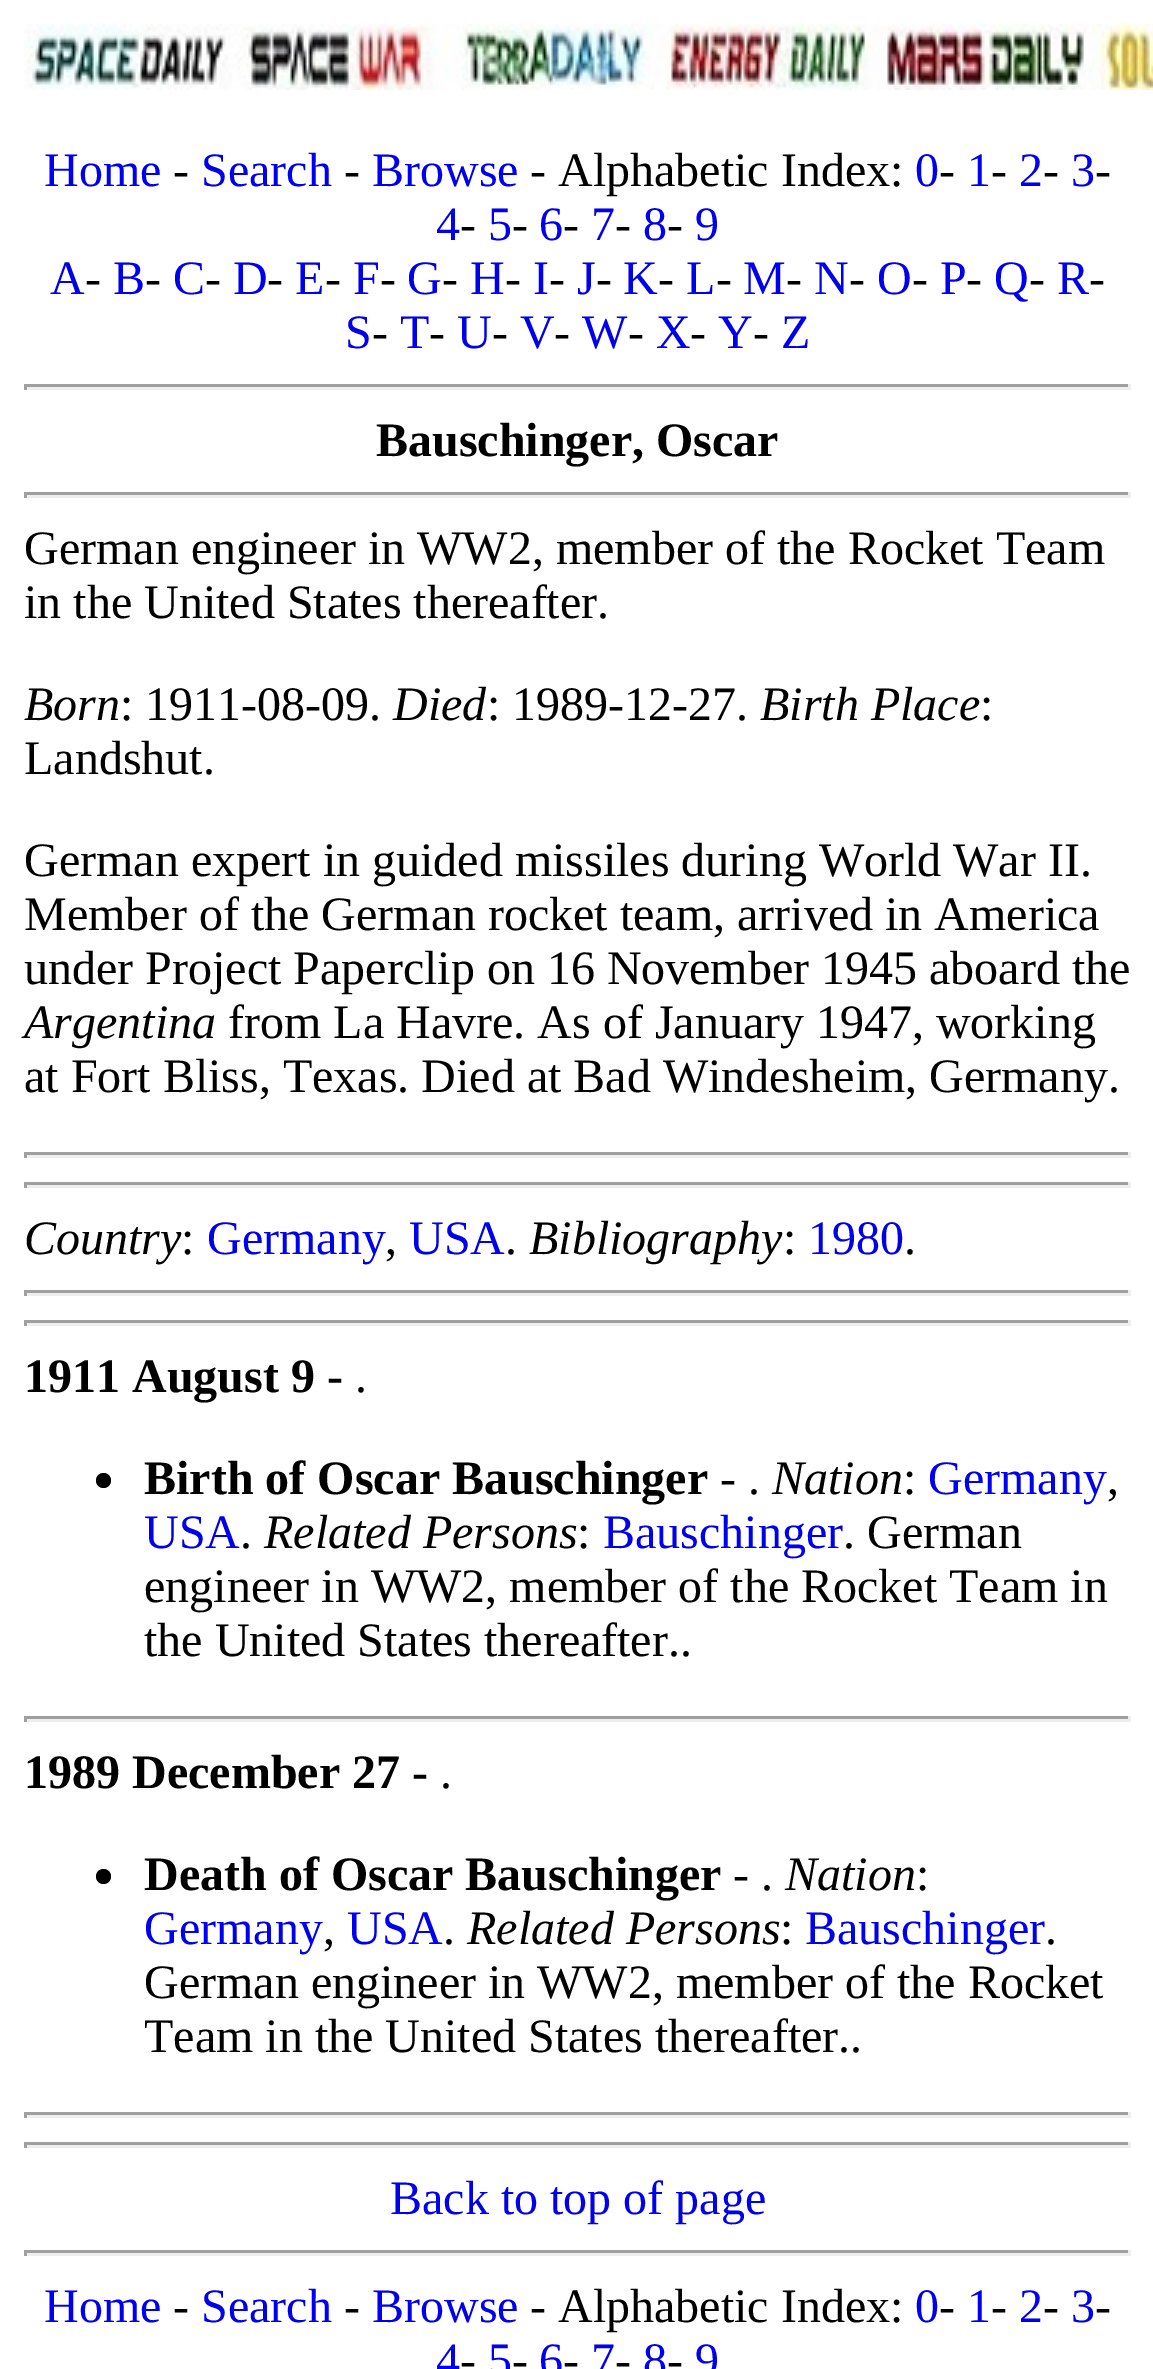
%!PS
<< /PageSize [1153 2369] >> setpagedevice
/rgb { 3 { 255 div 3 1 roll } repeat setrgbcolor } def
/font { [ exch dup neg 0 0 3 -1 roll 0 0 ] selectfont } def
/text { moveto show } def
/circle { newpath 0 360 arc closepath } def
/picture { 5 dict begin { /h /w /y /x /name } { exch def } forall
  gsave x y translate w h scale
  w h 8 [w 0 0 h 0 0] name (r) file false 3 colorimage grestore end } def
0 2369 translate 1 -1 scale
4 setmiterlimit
255 255 255 rgb
0 0 1153 2369 rectfill
(img_01.rgb) 24 24 1129 66 picture
159 159 159 rgb
24 384 1107 3 rectfill
238 238 238 rgb
1128 384 3 6 rectfill
24 387 1107 3 rectfill
159 159 159 rgb
24 384 3 6 rectfill
24 492 1107 3 rectfill
238 238 238 rgb
1128 492 3 6 rectfill
24 495 1107 3 rectfill
159 159 159 rgb
24 492 3 6 rectfill
24 1152 1107 3 rectfill
238 238 238 rgb
1128 1152 3 6 rectfill
24 1155 1107 3 rectfill
159 159 159 rgb
24 1152 3 6 rectfill
24 1182 1107 3 rectfill
238 238 238 rgb
1128 1182 3 6 rectfill
24 1185 1107 3 rectfill
159 159 159 rgb
24 1182 3 6 rectfill
24 1290 1107 3 rectfill
238 238 238 rgb
1128 1290 3 6 rectfill
24 1293 1107 3 rectfill
159 159 159 rgb
24 1290 3 6 rectfill
24 1320 1107 3 rectfill
238 238 238 rgb
1128 1320 3 6 rectfill
24 1323 1107 3 rectfill
159 159 159 rgb
24 1320 3 6 rectfill
0 0 0 rgb
103.5 1480.5 7.5 circle fill
159 159 159 rgb
24 1716 1107 3 rectfill
238 238 238 rgb
1128 1716 3 6 rectfill
24 1719 1107 3 rectfill
159 159 159 rgb
24 1716 3 6 rectfill
0 0 0 rgb
103.5 1876.5 7.5 circle fill
159 159 159 rgb
24 2112 1107 3 rectfill
238 238 238 rgb
1128 2112 3 6 rectfill
24 2115 1107 3 rectfill
159 159 159 rgb
24 2112 3 6 rectfill
24 2142 1107 3 rectfill
238 238 238 rgb
1128 2142 3 6 rectfill
24 2145 1107 3 rectfill
159 159 159 rgb
24 2142 3 6 rectfill
24 2250 1107 3 rectfill
238 238 238 rgb
1128 2250 3 6 rectfill
24 2253 1107 3 rectfill
159 159 159 rgb
24 2250 3 6 rectfill
/LiberationSerif-Regular 48 font
0 0 238 rgb
(Home) 44 186 text
0 0 0 rgb
(-) 173 186 text
0 0 238 rgb
(Search) 201 186 text
0 0 0 rgb
(-) 344 186 text
0 0 238 rgb
(Browse) 372 186 text
0 0 0 rgb
(- Alphabetic Index:) 530 186 text
0 0 238 rgb
(0) 915 186 text
0 0 0 rgb
(-) 939 186 text
0 0 238 rgb
(1) 967 186 text
0 0 0 rgb
(-) 991 186 text
0 0 238 rgb
(2) 1019 186 text
0 0 0 rgb
(-) 1043 186 text
0 0 238 rgb
(3) 1071 186 text
0 0 0 rgb
(-) 1095 186 text
0 0 238 rgb
(4) 436 240 text
0 0 0 rgb
(-) 460 240 text
0 0 238 rgb
(5) 488 240 text
0 0 0 rgb
(-) 512 240 text
0 0 238 rgb
(6) 539 240 text
0 0 0 rgb
(-) 563 240 text
0 0 238 rgb
(7) 591 240 text
0 0 0 rgb
(-) 615 240 text
0 0 238 rgb
(8) 643 240 text
0 0 0 rgb
(-) 667 240 text
0 0 238 rgb
(9) 695 240 text
(A) 50 294 text
0 0 0 rgb
(-) 85 294 text
0 0 238 rgb
(B) 113 294 text
0 0 0 rgb
(-) 145 294 text
0 0 238 rgb
(C) 173 294 text
0 0 0 rgb
(-) 205 294 text
0 0 238 rgb
(D) 233 294 text
0 0 0 rgb
(-) 267 294 text
0 0 238 rgb
(E) 295 294 text
0 0 0 rgb
(-) 325 294 text
0 0 238 rgb
(F) 353 294 text
0 0 0 rgb
(-) 380 294 text
0 0 238 rgb
(G) 407 294 text
0 0 0 rgb
(-) 442 294 text
0 0 238 rgb
(H) 470 294 text
0 0 0 rgb
(-) 505 294 text
0 0 238 rgb
(I) 533 294 text
0 0 0 rgb
(-) 549 294 text
0 0 238 rgb
(J) 577 294 text
0 0 0 rgb
(-) 596 294 text
0 0 238 rgb
(K) 623 294 text
0 0 0 rgb
(-) 658 294 text
0 0 238 rgb
(L) 686 294 text
0 0 0 rgb
(-) 716 294 text
0 0 238 rgb
(M) 743 294 text
0 0 0 rgb
(-) 786 294 text
0 0 238 rgb
(N) 814 294 text
0 0 0 rgb
(-) 849 294 text
0 0 238 rgb
(O) 877 294 text
0 0 0 rgb
(-) 912 294 text
0 0 238 rgb
(P) 940 294 text
0 0 0 rgb
(-) 966 294 text
0 0 238 rgb
(Q) 994 294 text
0 0 0 rgb
(-) 1029 294 text
0 0 238 rgb
(R) 1057 294 text
0 0 0 rgb
(-) 1089 294 text
0 0 238 rgb
(S) 345 348 text
0 0 0 rgb
(-) 372 348 text
0 0 238 rgb
(T) 400 348 text
0 0 0 rgb
(-) 429 348 text
0 0 238 rgb
(U) 457 348 text
0 0 0 rgb
(-) 492 348 text
0 0 238 rgb
(V) 520 348 text
0 0 0 rgb
(-) 554 348 text
0 0 238 rgb
(W) 582 348 text
0 0 0 rgb
(-) 628 348 text
0 0 238 rgb
(X) 656 348 text
0 0 0 rgb
(-) 690 348 text
0 0 238 rgb
(Y) 718 348 text
0 0 0 rgb
(-) 753 348 text
0 0 238 rgb
(Z) 781 348 text
/LiberationSerif-Bold 48 font
0 0 0 rgb
(Bauschinger, Oscar) 376 456 text
/LiberationSerif-Regular 48 font
(German engineer in WW2, member of the Rocket Team) 24 564 text
(in the United States thereafter.) 24 618 text
/LiberationSerif-Italic 48 font
(Born) 24 720 text
/LiberationSerif-Regular 48 font
(: 1911-08-09.) 120 720 text
/LiberationSerif-Italic 48 font
(Died) 393 720 text
/LiberationSerif-Regular 48 font
(: 1989-12-27.) 487 720 text
/LiberationSerif-Italic 48 font
(Birth Place) 760 720 text
/LiberationSerif-Regular 48 font
(:) 980 720 text
(Landshut.) 24 774 text
(German expert in guided missiles during World War II.) 24 876 text
(Member of the German rocket team, arrived in America) 24 930 text
(under Project Paperclip on 16 November 1945 aboard the) 24 984 text
/LiberationSerif-Italic 48 font
(Argentina) 24 1038 text
/LiberationSerif-Regular 48 font
(from La Havre. As of January 1947, working) 228 1038 text
(at Fort Bliss, Texas. Died at Bad Windesheim, Germany.) 24 1092 text
/LiberationSerif-Italic 48 font
(Country) 24 1254 text
/LiberationSerif-Regular 48 font
(:) 181 1254 text
0 0 238 rgb
(Germany) 207 1254 text
0 0 0 rgb
(,) 385 1254 text
0 0 238 rgb
(USA) 409 1254 text
0 0 0 rgb
(.) 505 1254 text
/LiberationSerif-Italic 48 font
(Bibliography) 529 1254 text
/LiberationSerif-Regular 48 font
(:) 783 1254 text
0 0 238 rgb
(1980) 808 1254 text
0 0 0 rgb
(.) 904 1254 text
/LiberationSerif-Bold 48 font
(1911 August 9 -) 24 1392 text
/LiberationSerif-Regular 48 font
(.) 355 1392 text
/LiberationSerif-Bold 48 font
(Birth of Oscar Bauschinger) 144 1494 text
/LiberationSerif-Regular 48 font
(- .) 720 1494 text
/LiberationSerif-Italic 48 font
(Nation) 772 1494 text
/LiberationSerif-Regular 48 font
(:) 903 1494 text
0 0 238 rgb
(Germany) 928 1494 text
0 0 0 rgb
(,) 1107 1494 text
0 0 238 rgb
(USA) 144 1548 text
0 0 0 rgb
(.) 240 1548 text
/LiberationSerif-Italic 48 font
(Related Persons) 264 1548 text
/LiberationSerif-Regular 48 font
(:) 577 1548 text
0 0 238 rgb
(Bauschinger) 603 1548 text
0 0 0 rgb
(. German) 843 1548 text
(engineer in WW2, member of the Rocket Team in) 144 1602 text
(the United States thereafter..) 144 1656 text
/LiberationSerif-Bold 48 font
(1989 December 27 -) 24 1788 text
/LiberationSerif-Regular 48 font
(.) 440 1788 text
/LiberationSerif-Bold 48 font
(Death of Oscar Bauschinger) 144 1890 text
/LiberationSerif-Regular 48 font
(- .) 733 1890 text
/LiberationSerif-Italic 48 font
(Nation) 785 1890 text
/LiberationSerif-Regular 48 font
(:) 916 1890 text
0 0 238 rgb
(Germany) 144 1944 text
0 0 0 rgb
(,) 323 1944 text
0 0 238 rgb
(USA) 347 1944 text
0 0 0 rgb
(.) 443 1944 text
/LiberationSerif-Italic 48 font
(Related Persons) 467 1944 text
/LiberationSerif-Regular 48 font
(:) 780 1944 text
0 0 238 rgb
(Bauschinger) 805 1944 text
0 0 0 rgb
(.) 1045 1944 text
(German engineer in WW2, member of the Rocket) 144 1998 text
(Team in the United States thereafter..) 144 2052 text
0 0 238 rgb
(Back to top of page) 390 2214 text
(Home) 44 2322 text
0 0 0 rgb
(-) 173 2322 text
0 0 238 rgb
(Search) 201 2322 text
0 0 0 rgb
(-) 344 2322 text
0 0 238 rgb
(Browse) 372 2322 text
0 0 0 rgb
(- Alphabetic Index:) 530 2322 text
0 0 238 rgb
(0) 915 2322 text
0 0 0 rgb
(-) 939 2322 text
0 0 238 rgb
(1) 967 2322 text
0 0 0 rgb
(-) 991 2322 text
0 0 238 rgb
(2) 1019 2322 text
0 0 0 rgb
(-) 1043 2322 text
0 0 238 rgb
(3) 1071 2322 text
0 0 0 rgb
(-) 1095 2322 text
0 0 238 rgb
(4) 436 2376 text
0 0 0 rgb
(-) 460 2376 text
0 0 238 rgb
(5) 488 2376 text
0 0 0 rgb
(-) 512 2376 text
0 0 238 rgb
(6) 539 2376 text
0 0 0 rgb
(-) 563 2376 text
0 0 238 rgb
(7) 591 2376 text
0 0 0 rgb
(-) 615 2376 text
0 0 238 rgb
(8) 643 2376 text
0 0 0 rgb
(-) 667 2376 text
0 0 238 rgb
(9) 695 2376 text
showpage
